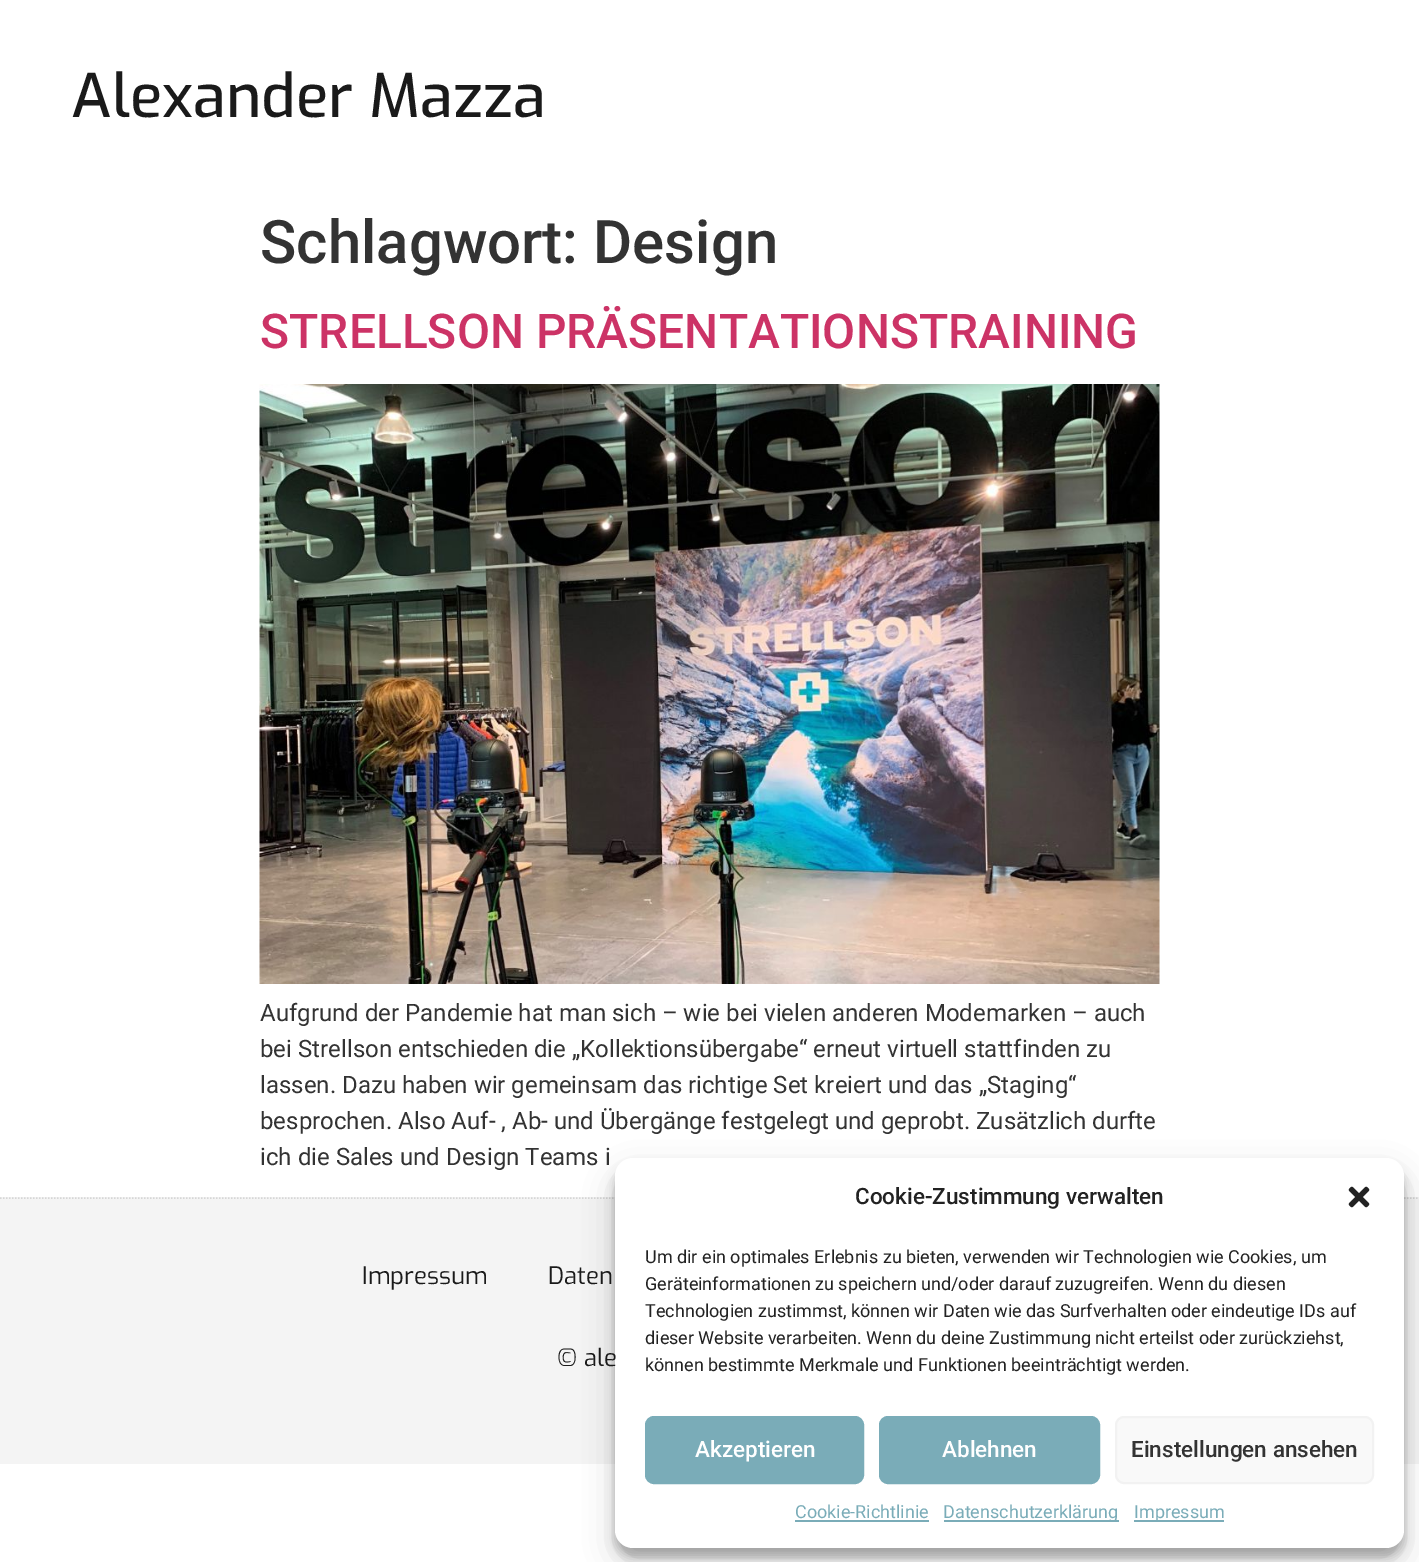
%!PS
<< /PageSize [1419 1562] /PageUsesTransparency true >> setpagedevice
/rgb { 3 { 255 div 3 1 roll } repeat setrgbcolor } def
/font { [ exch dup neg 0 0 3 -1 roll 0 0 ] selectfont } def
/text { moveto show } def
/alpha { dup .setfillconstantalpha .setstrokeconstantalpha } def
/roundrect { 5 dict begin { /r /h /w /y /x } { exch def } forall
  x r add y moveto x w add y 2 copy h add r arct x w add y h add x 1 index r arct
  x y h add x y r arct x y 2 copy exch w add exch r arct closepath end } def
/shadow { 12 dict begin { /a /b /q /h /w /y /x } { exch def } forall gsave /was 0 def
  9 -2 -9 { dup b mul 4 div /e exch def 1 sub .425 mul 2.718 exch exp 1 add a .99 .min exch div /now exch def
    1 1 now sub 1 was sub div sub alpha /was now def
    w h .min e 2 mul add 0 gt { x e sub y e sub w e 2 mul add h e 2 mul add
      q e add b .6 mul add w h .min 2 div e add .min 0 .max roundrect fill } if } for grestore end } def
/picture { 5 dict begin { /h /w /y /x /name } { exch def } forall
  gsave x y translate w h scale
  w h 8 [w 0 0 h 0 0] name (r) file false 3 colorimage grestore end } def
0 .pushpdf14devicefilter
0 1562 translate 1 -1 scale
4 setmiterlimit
255 255 255 rgb
0 0 1419 1562 rectfill
(img_01.rgb) 259 384 901 600 picture
244 244 244 rgb
0 1197 1419 267 rectfill
214 214 214 rgb
1.5 setlinewidth
[1.5 1.5] 0 setdash
0 1198 moveto 1419 0 rlineto stroke
0 0 0 rgb
615 1167 789 390 18 4.5 0.23 shadow
615 1173 789 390 18 15 0.19 shadow
255 255 255 rgb
615 1158 789 390 18 roundrect fill
(img_02.rgb) 1348 1186 22 22 picture
122 172 184 rgb
646 1417 217 66 8 roundrect gsave fill grestore
2 setlinewidth
[] 0 setdash
stroke
880 1417 219 66 8 roundrect gsave fill grestore
stroke
249 249 249 rgb
1116 1417 257 66 8 roundrect gsave fill grestore
242 242 242 rgb
stroke
122 172 184 rgb
795 1520 134 2 rectfill
944 1520 175 2 rectfill
1134 1520 90 2 rectfill
/Exo-Medium 60 font
26 26 26 rgb
(Alexander Mazza) 71 117 text
/Roboto-Medium 60 font
51 51 51 rgb
(Schlagwort: Design) 260 263 text
/Roboto-Medium 48 font
204 51 102 rgb
(STRELLSON PRÄSENTATIONSTRAINING) 260 348 text
/Roboto-Regular 24 font
51 51 51 rgb
(Aufgrund der Pandemie hat man sich – wie bei vielen anderen Modemarken – auch) 260 1021 text
(bei Strellson entschieden die „Kollektionsübergabe“ erneut virtuell stattfinden zu) 260 1057 text
(lassen. Dazu haben wir gemeinsam das richtige Set kreiert und das „Staging“) 260 1093 text
(besprochen. Also Auf- , Ab- und Übergänge festgelegt und geprobt. Zusätzlich durfte) 260 1129 text
(ich die Sales und Design Teams i) 260 1165 text
/Exo-Regular 24 font
26 26 26 rgb
(Impressum) 362 1284 text
(Daten) 548 1284 text
(© ale) 557 1366 text
/Roboto-Medium 22.5 font
34 34 34 rgb
(Cookie-Zustimmung verwalten) 855 1204 text
/Roboto-Regular 18 font
(Um dir ein optimales Erlebnis zu bieten, verwenden wir Technologien wie Cookies, um) 645 1263 text
(Geräteinformationen zu speichern und/oder darauf zuzugreifen. Wenn du diesen) 645 1290 text
(Technologien zustimmst, können wir Daten wie das Surfverhalten oder eindeutige IDs auf) 645 1317 text
(dieser Website verarbeiten. Wenn du deine Zustimmung nicht erteilst oder zurückziehst,) 645 1344 text
(können bestimmte Merkmale und Funktionen beeinträchtigt werden.) 645 1371 text
/Roboto-Medium 22.5 font
255 255 255 rgb
(Akzeptieren) 695 1457 text
(Ablehnen) 942 1457 text
51 51 51 rgb
(Einstellungen ansehen) 1131 1457 text
/Roboto-Regular 18 font
122 172 184 rgb
(Cookie-Richtlinie) 795 1518 text
(Datenschutzerklärung) 943 1518 text
(Impressum) 1134 1518 text
.poppdf14devicefilter showpage
